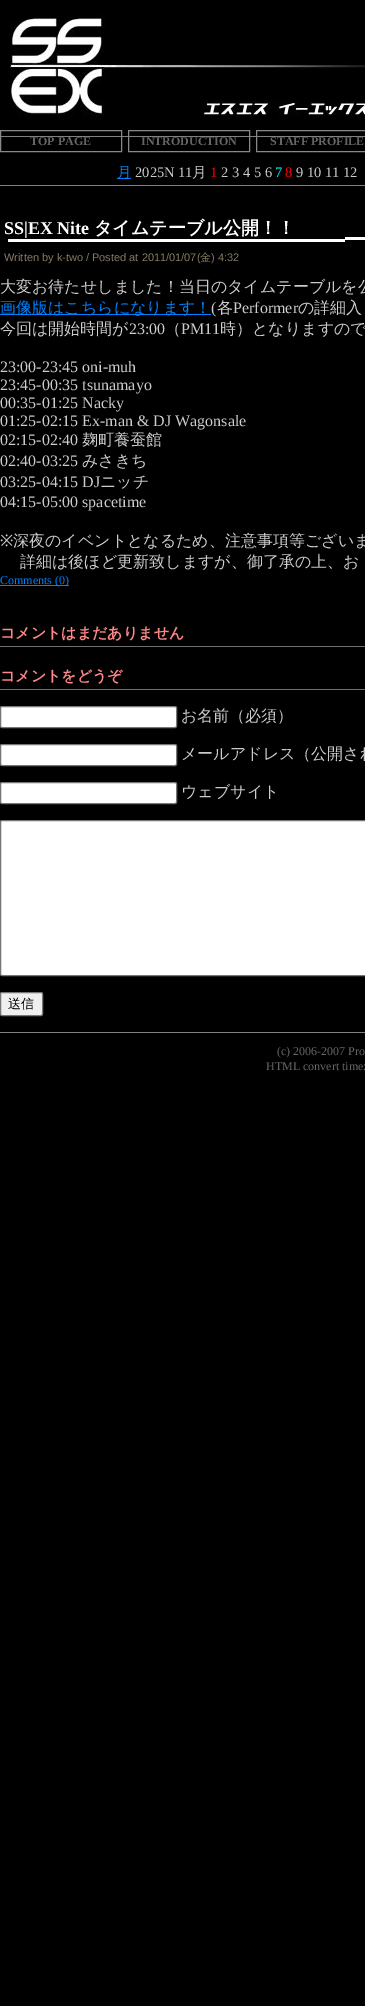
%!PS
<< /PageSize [365 2006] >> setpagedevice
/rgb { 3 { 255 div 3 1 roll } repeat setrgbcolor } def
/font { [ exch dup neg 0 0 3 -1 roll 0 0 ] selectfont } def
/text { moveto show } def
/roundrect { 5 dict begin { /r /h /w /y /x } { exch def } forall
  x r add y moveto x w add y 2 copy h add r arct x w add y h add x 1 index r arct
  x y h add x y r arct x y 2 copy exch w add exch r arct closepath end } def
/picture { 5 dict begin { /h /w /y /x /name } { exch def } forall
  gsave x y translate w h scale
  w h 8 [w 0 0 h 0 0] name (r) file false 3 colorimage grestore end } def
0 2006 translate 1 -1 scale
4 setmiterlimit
0 0 0 rgb
0 0 365 2006 rectfill
128 128 128 rgb
0 136 365 1 rectfill
(img_01.rgb) 10 12 355 104 picture
136 136 136 rgb
0.5 130.5 121 21 rectstroke
128.5 130.5 121 21 rectstroke
256.5 130.5 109 21 rectstroke
0 128 255 rgb
117 178 14 1 rectfill
128 128 128 rgb
0 185 365 1 rectfill
255 255 255 rgb
345 237 20 3 rectfill
(img_02.rgb) 6 237 339 5 picture
0 128 255 rgb
0 314 211 1 rectfill
0 585 69 1 rectfill
111 111 111 rgb
0 646 365 1 rectfill
0 689 365 1 rectfill
255 255 255 rgb
0.5 706.5 176 21 1.5 roundrect gsave fill grestore
118 118 118 rgb
stroke
255 255 255 rgb
0.5 744.5 176 21 1.5 roundrect gsave fill grestore
118 118 118 rgb
stroke
255 255 255 rgb
0.5 782.5 176 21 1.5 roundrect gsave fill grestore
118 118 118 rgb
stroke
255 255 255 rgb
0.5 820.5 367 155 1.5 roundrect gsave fill grestore
118 118 118 rgb
stroke
239 239 239 rgb
0.5 992.5 42 23 1.5 roundrect gsave fill grestore
118 118 118 rgb
stroke
128 128 128 rgb
0 1032 365 1 rectfill
/LiberationSerif-Bold 12 font
102 102 102 rgb
(TOP PAGE) 30 145 text
(INTRODUCTION) 141 145 text
(STAFF PROFILE) 270 145 text
/WenQuanYiZenHei-Medium 14.5 font
0 128 255 rgb
(月) 117 177 text
/LiberationSerif-Regular 14.5 font
204 204 204 rgb
(2025N 11) 135 177 text
/WenQuanYiZenHei-Medium 14.5 font
(月) 192 177 text
/LiberationSerif-Regular 14.5 font
255 0 0 rgb
(1) 210 177 text
204 204 204 rgb
(2 3 4 5 6) 221 177 text
0 255 255 rgb
(7) 275 177 text
255 0 0 rgb
(8) 285 177 text
204 204 204 rgb
(9 10 11 12) 296 177 text
/LiberationSerif-Bold 18 font
255 255 255 rgb
(SS|EX Nite) 4 234 text
/WenQuanYiZenHei-Bold 18 font
(タイムテーブル公開！！) 94 234 text
/LiberationSans-Regular 11 font
134 123 100 rgb
(Written by k-two / Posted at 2011/01/07\() 4 261 text
/WenQuanYiZenHei-Medium 11 font
(金) 200 261 text
/LiberationSans-Regular 11 font
(\) 4:32) 211 261 text
/WenQuanYiZenHei-Medium 16 font
204 204 204 rgb
(大変お待たせしました！当日のタイムテーブルを公) 0 292 text
0 128 255 rgb
(画像版はこちらになります！) 0 313 text
/LiberationSerif-Regular 16 font
204 204 204 rgb
(\() 211 313 text
/WenQuanYiZenHei-Medium 16 font
(各) 217 313 text
/LiberationSerif-Regular 16 font
(Performer) 233 313 text
/WenQuanYiZenHei-Medium 16 font
(の詳細入) 298 313 text
(今回は開始時間が) 0 334 text
/LiberationSerif-Regular 16 font
(23:00) 129 334 text
/WenQuanYiZenHei-Medium 16 font
(（) 165 334 text
/LiberationSerif-Regular 16 font
(PM11) 181 334 text
/WenQuanYiZenHei-Medium 16 font
(時）となりますので) 220 334 text
/LiberationSerif-Regular 16 font
(23:00-23:45 oni-muh) 0 372 text
(23:45-00:35 tsunamayo) 0 390 text
(00:35-01:25 Nacky) 0 408 text
(01:25-02:15 Ex-man & DJ Wagonsale) 0 426 text
(02:15-02:40) 0 445 text
/WenQuanYiZenHei-Medium 16 font
(麹町養蚕館) 82 445 text
/LiberationSerif-Regular 16 font
(02:40-03:25) 0 466 text
/WenQuanYiZenHei-Medium 16 font
(みさきち) 82 466 text
/LiberationSerif-Regular 16 font
(03:25-04:15 DJ) 0 487 text
/WenQuanYiZenHei-Medium 16 font
(ニッチ) 100 487 text
/LiberationSerif-Regular 16 font
(04:15-05:00 spacetime) 0 507 text
/NotoSans-Regular 16 font
(※) 0 546 text
/WenQuanYiZenHei-Medium 16 font
(深夜のイベントとなるため、注意事項等ございま) 13 546 text
(詳細は後ほど更新致しますが、御了承の上、お) 20 567 text
/LiberationSerif-Regular 12 font
0 128 255 rgb
(Comments \(0\)) 0 584 text
/WenQuanYiZenHei-Bold 15 font
255 136 136 rgb
(コメントはまだありません) 0 638 text
(コメントをどうぞ) 0 681 text
/WenQuanYiZenHei-Medium 16 font
204 204 204 rgb
(お名前（必須）) 181 721 text
(メールアドレス（公開され) 181 759 text
(ウェブサイト) 181 797 text
/WenQuanYiZenHei-Medium 13 font
0 0 0 rgb
(送信) 8 1008 text
/LiberationSerif-Regular 12 font
102 102 102 rgb
(\(c\) 2006-2007 Pro) 277 1055 text
(HTML convert time:) 266 1070 text
showpage
